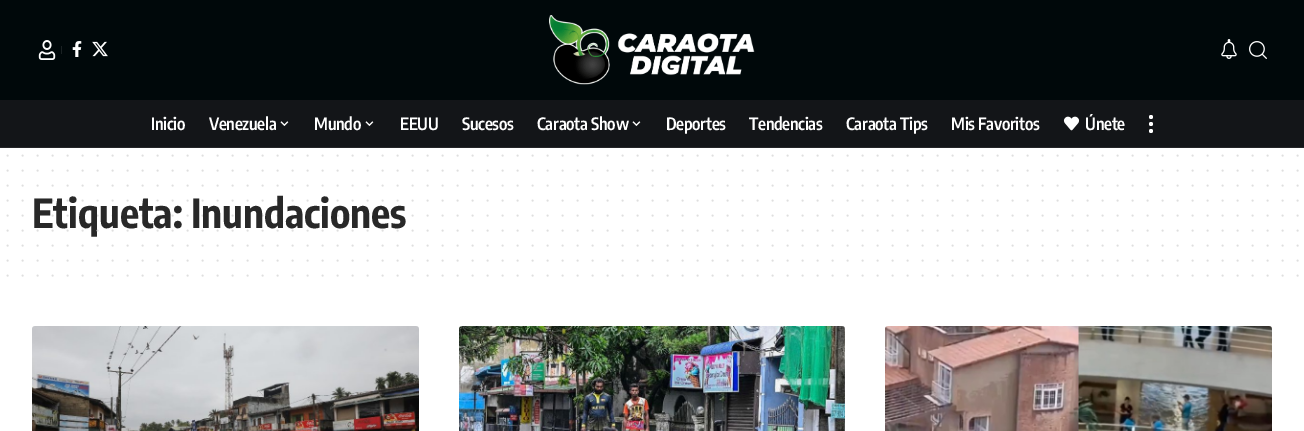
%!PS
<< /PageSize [1304 431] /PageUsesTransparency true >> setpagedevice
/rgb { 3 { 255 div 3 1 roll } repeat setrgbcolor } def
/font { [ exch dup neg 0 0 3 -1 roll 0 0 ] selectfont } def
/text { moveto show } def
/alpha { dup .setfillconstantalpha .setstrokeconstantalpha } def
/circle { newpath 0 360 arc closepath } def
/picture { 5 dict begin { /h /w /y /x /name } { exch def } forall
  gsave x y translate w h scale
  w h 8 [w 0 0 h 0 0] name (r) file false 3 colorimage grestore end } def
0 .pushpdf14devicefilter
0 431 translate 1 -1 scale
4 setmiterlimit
255 255 255 rgb
0 0 1304 431 rectfill
0 8 10 rgb
0 0 1304 100 rectfill
(img_01.rgb) 38 40 18 20 picture
26 33 35 rgb
61 46 1 8 rectfill
(img_02.rgb) 72 41 10 16 picture
(img_03.rgb) 92 41 16 16 picture
(img_04.rgb) 549 15 206 70 picture
(img_05.rgb) 1221 39 16 20 picture
(img_06.rgb) 1249 41 18 18 picture
19 21 24 rgb
0 100 1304 47 rectfill
(img_07.rgb) 280 121 9 5 picture
(img_07.rgb) 365 121 9 5 picture
(img_07.rgb) 632 121 9 5 picture
(img_08.rgb) 1063 116 17 15 picture
255 255 255 rgb
1151 117 2 circle fill
1151 124 2 circle fill
1151 131 2 circle fill
37 38 41 rgb
0 147 1304 1 rectfill
223 223 223 rgb
2 setlinewidth
1 setlinecap
[0 15] 0 setdash
7.5 155.5 moveto 1290.2 0 rlineto stroke
7.5 170.5 moveto 1290.2 0 rlineto stroke
7.5 185.5 moveto 1290.2 0 rlineto stroke
7.5 245.5 moveto 1290.2 0 rlineto stroke
7.5 260.5 moveto 1290.2 0 rlineto stroke
7.5 275.5 moveto 1290.2 0 rlineto stroke
(img_09.rgb) 32 326 387 105 picture
(img_10.rgb) 459 326 386 105 picture
(img_11.rgb) 885 326 387 105 picture
/EncodeSansCondensed-SemiBold 17 font
255 255 255 rgb
151 130 moveto -0.3 0 (Inicio) ashow
209 130 moveto -0.3 0 (Venezuela) ashow
314 130 moveto -0.3 0 (Mundo) ashow
400 130 moveto -0.3 0 (EEUU) ashow
462 130 moveto -0.3 0 (Sucesos) ashow
537 130 moveto -0.3 0 (Caraota Show) ashow
666 130 moveto -0.3 0 (Deportes) ashow
749 130 moveto -0.3 0 (Tendencias) ashow
846 130 moveto -0.3 0 (Caraota Tips) ashow
951 130 moveto -0.3 0 (Mis Favoritos) ashow
1085 130 moveto -0.3 0 (Únete) ashow
/EncodeSansCondensed-Bold 40 font
40 40 40 rgb
(Etiqueta: Inundaciones) 32 228 text
223 223 223 rgb
7.5 230.5 moveto 1290.2 0 rlineto stroke
0.15 alpha
40 40 40 rgb
7.5 215.5 moveto 1290.2 0 rlineto stroke
7.5 200.5 moveto 1290.2 0 rlineto stroke
.poppdf14devicefilter showpage
